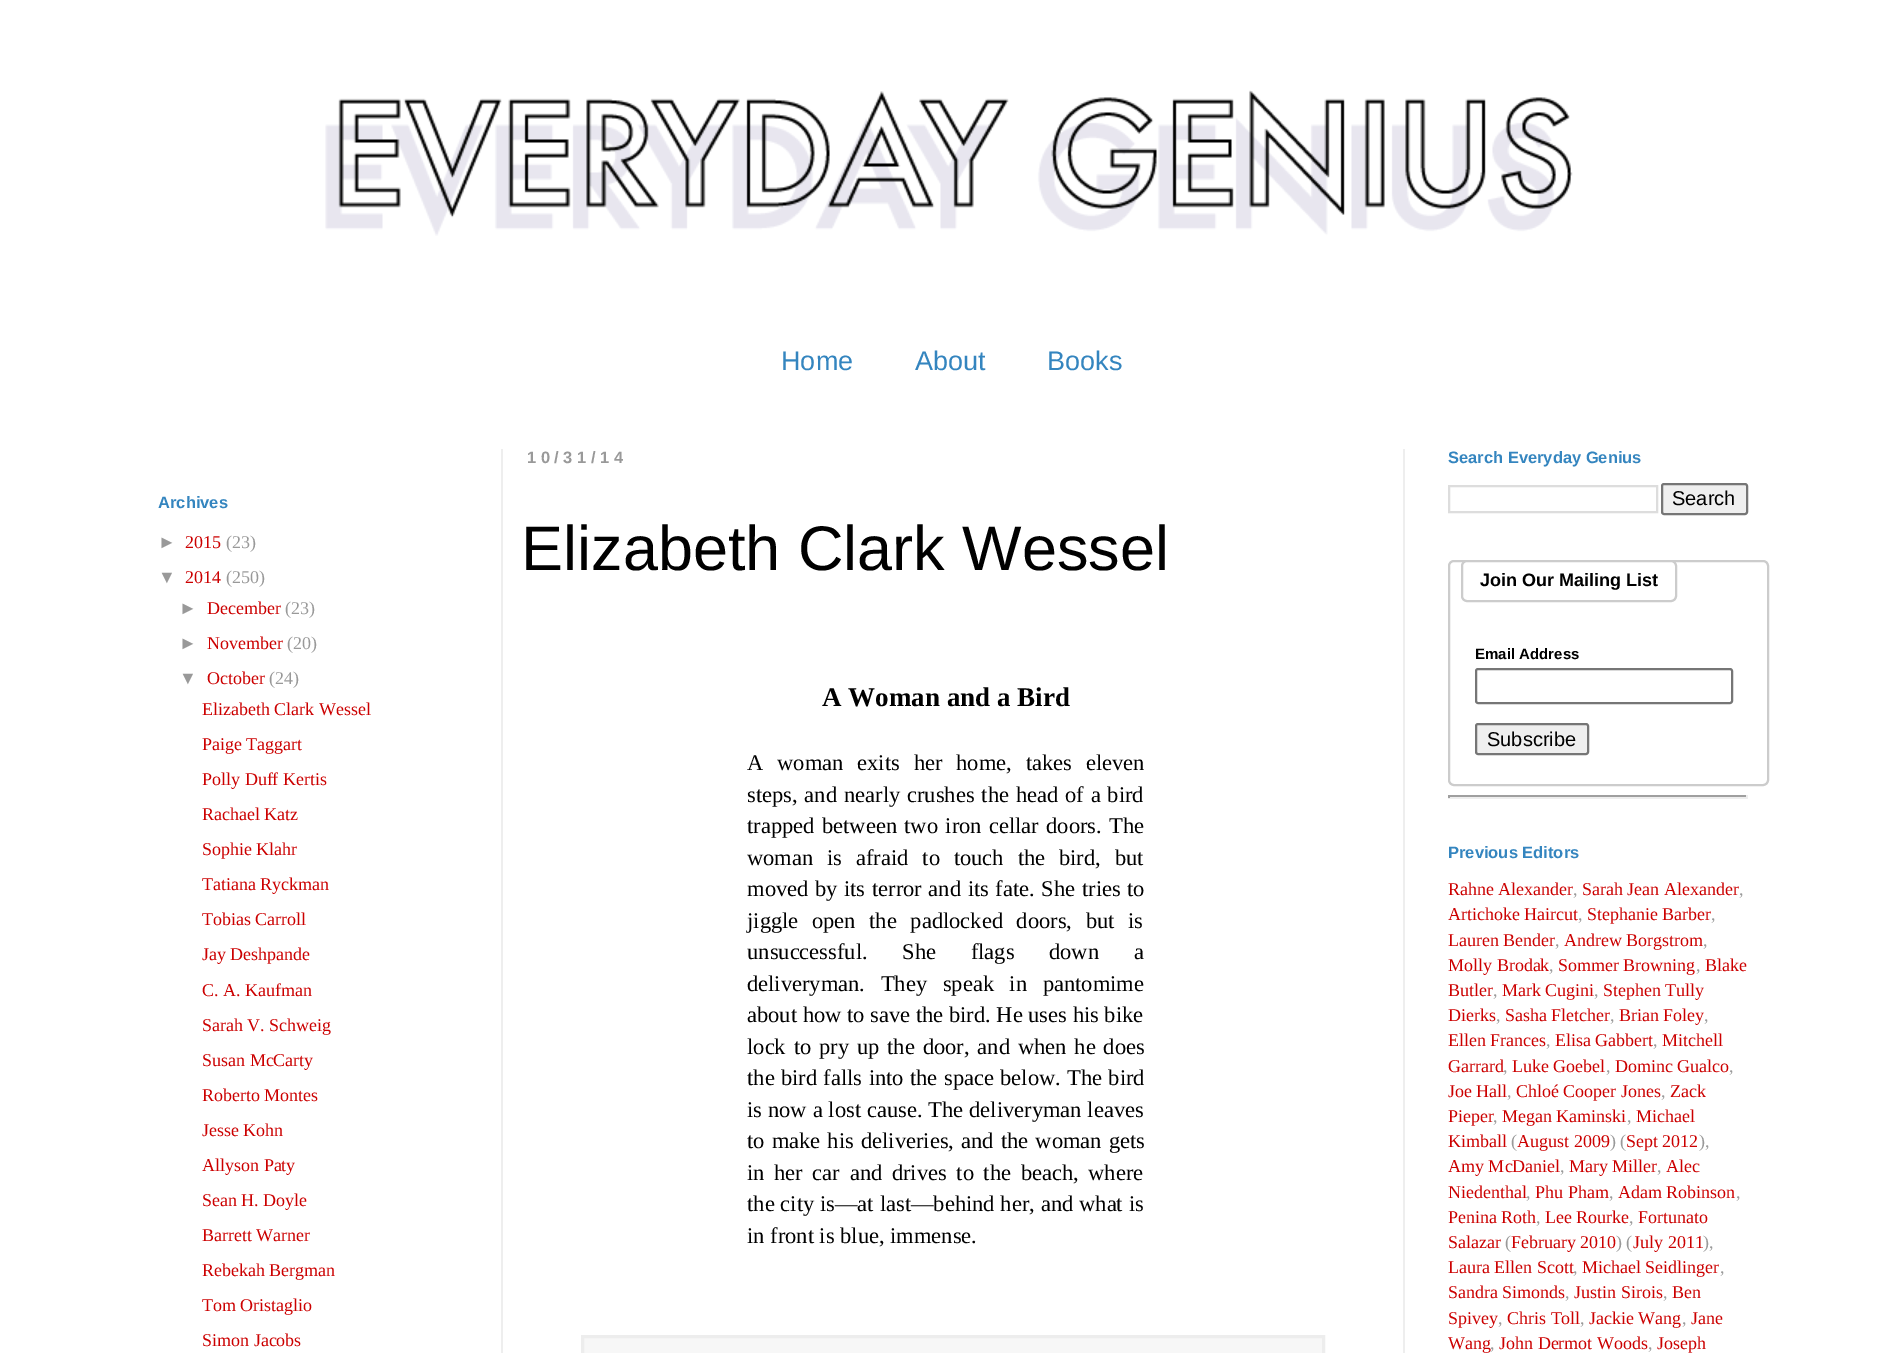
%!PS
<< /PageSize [1904 1353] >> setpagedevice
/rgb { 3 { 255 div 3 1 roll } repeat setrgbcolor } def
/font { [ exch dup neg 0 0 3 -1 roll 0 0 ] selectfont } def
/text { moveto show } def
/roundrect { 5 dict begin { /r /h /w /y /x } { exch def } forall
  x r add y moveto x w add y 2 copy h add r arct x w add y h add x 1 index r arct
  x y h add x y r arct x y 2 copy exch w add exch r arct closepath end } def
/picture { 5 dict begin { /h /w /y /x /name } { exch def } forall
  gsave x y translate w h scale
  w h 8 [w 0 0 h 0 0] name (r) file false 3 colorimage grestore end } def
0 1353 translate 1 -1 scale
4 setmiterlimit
255 255 255 rgb
0 0 1904 1353 rectfill
(img_01.rgb) 325 90 1248 146 picture
238 238 238 rgb
501 449 2 904 rectfill
1403 449 2 904 rectfill
247 247 247 rgb
582.5 1336.5 moveto 741 0 rlineto 0 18 rlineto -741 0 rlineto closepath gsave fill grestore
237 237 237 rgb
3 setlinewidth
stroke
221 221 221 rgb
2 setlinewidth
1449 486 208 26 rectstroke
239 239 239 rgb
1662 484 85 30 2 roundrect gsave fill grestore
118 118 118 rgb
stroke
204 204 204 rgb
1449 561 319 224 5 roundrect stroke
255 255 255 rgb
1462 561 214 40 5 roundrect gsave fill grestore
204 204 204 rgb
stroke
118 118 118 rgb
1476 669 256 34 2 roundrect stroke
239 239 239 rgb
1476 724 112 30 2 roundrect gsave fill grestore
118 118 118 rgb
stroke
159 159 159 rgb
1448 795 300 2 rectfill
238 238 238 rgb
1746 795 2 3 rectfill
1448 797 300 2 rectfill
159 159 159 rgb
1448 795 2 3 rectfill
/LiberationSans-Regular 27 font
52 133 191 rgb
(Home) 781 370 text
(About) 915 370 text
(Books) 1047 370 text
/LiberationSans-Bold 16.5 font
(Archives) 158 508 text
/LiberationSans-Regular 18 font
153 153 153 rgb
(►) 158 548 text
/LiberationSerif-Regular 18 font
204 0 0 rgb
(2015) 185 548 text
153 153 153 rgb
(\(23\)) 226 548 text
/LiberationSans-Regular 18 font
(▼) 158 583 text
/LiberationSerif-Regular 18 font
204 0 0 rgb
(2014) 185 583 text
153 153 153 rgb
(\(250\)) 226 583 text
/LiberationSans-Regular 18 font
(►) 179 614 text
/LiberationSerif-Regular 18 font
204 0 0 rgb
(December) 207 614 text
153 153 153 rgb
(\(23\)) 285 614 text
/LiberationSans-Regular 18 font
(►) 179 649 text
/LiberationSerif-Regular 18 font
204 0 0 rgb
(November) 207 649 text
153 153 153 rgb
(\(20\)) 287 649 text
/LiberationSans-Regular 18 font
(▼) 179 684 text
/LiberationSerif-Regular 18 font
204 0 0 rgb
(October) 207 684 text
153 153 153 rgb
(\(24\)) 269 684 text
204 0 0 rgb
(Elizabeth Clark Wessel) 202 715 text
(Paige Taggart) 202 750 text
(Polly Duff Kertis) 202 785 text
(Rachael Katz) 202 820 text
(Sophie Klahr) 202 855 text
(Tatiana Ryckman) 202 890 text
(Tobias Carroll) 202 925 text
(Jay Deshpande) 202 960 text
(C. A. Kaufman) 202 996 text
(Sarah V. Schweig) 202 1031 text
(Susan McCarty) 202 1066 text
(Roberto Montes) 202 1101 text
(Jesse Kohn) 202 1136 text
(Allyson Paty) 202 1171 text
(Sean H. Doyle) 202 1206 text
(Barrett Warner) 202 1241 text
(Rebekah Bergman) 202 1276 text
(Tom Oristaglio) 202 1311 text
(Simon Jacobs) 202 1346 text
/LiberationSans-Bold 16.5 font
153 153 153 rgb
527 463 moveto 4.5 0 (10/31/14) ashow
/LiberationSans-Regular 63 font
0 0 0 rgb
(Elizabeth Clark Wessel) 521 570 text
/LiberationSerif-Bold 27 font
(A Woman and a Bird) 822 706 text
/LiberationSerif-Regular 22.5 font
747 770 moveto 8.25 0 32 (A woman exits her home, takes eleven) widthshow
747 802 moveto 1.25 0 32 (steps, and nearly crushes the head of a bird) widthshow
747 833 moveto 1.75 0 32 (trapped between two iron cellar doors. The) widthshow
747 865 moveto 8.25 0 32 (woman is afraid to touch the bird, but) widthshow
747 896 moveto 1 0 32 (moved by its terror and its fate. She tries to) widthshow
747 928 moveto 8 0 32 (jiggle open the padlocked doors, but is) widthshow
747 959 moveto 29 0 32 (unsuccessful. She flags down a) widthshow
747 991 moveto 10 0 32 (deliveryman. They speak in pantomime) widthshow
(about how to save the bird. He uses his bike) 747 1022 text
747 1054 moveto 2.25 0 32 (lock to pry up the door, and when he does) widthshow
747 1085 moveto 0.75 0 32 (the bird falls into the space below. The bird) widthshow
747 1117 moveto 0.25 0 32 (is now a lost cause. The deliveryman leaves) widthshow
747 1148 moveto 1.5 0 32 (to make his deliveries, and the woman gets) widthshow
747 1180 moveto 4 0 32 (in her car and drives to the beach, where) widthshow
747 1211 moveto 0.25 0 32 (the city is—at last—behind her, and what is) widthshow
(in front is blue, immense.) 747 1243 text
/LiberationSans-Bold 16.5 font
52 133 191 rgb
(Search Everyday Genius) 1448 463 text
/LiberationSans-Regular 20 font
0 0 0 rgb
(Search) 1672 505 text
/LiberationSans-Bold 18 font
(Join Our Mailing List) 1480 586 text
/LiberationSans-Bold 15 font
(Email Address) 1475 659 text
/LiberationSans-Regular 20 font
(Subscribe) 1487 746 text
/LiberationSans-Bold 16.5 font
52 133 191 rgb
(Previous Editors) 1448 858 text
/LiberationSerif-Regular 18 font
204 0 0 rgb
(Rahne Alexander) 1448 895 text
153 153 153 rgb
(,) 1573 895 text
204 0 0 rgb
(Sarah Jean Alexander) 1582 895 text
153 153 153 rgb
(,) 1739 895 text
204 0 0 rgb
(Artichoke Haircut) 1448 920 text
153 153 153 rgb
(,) 1578 920 text
204 0 0 rgb
(Stephanie Barber) 1587 920 text
153 153 153 rgb
(,) 1711 920 text
204 0 0 rgb
(Lauren Bender) 1448 946 text
153 153 153 rgb
(,) 1555 946 text
204 0 0 rgb
(Andrew Borgstrom) 1564 946 text
153 153 153 rgb
(,) 1703 946 text
204 0 0 rgb
(Molly Brodak) 1448 971 text
153 153 153 rgb
(,) 1549 971 text
204 0 0 rgb
(Sommer Browning) 1558 971 text
153 153 153 rgb
(,) 1696 971 text
204 0 0 rgb
(Blake) 1705 971 text
(Butler) 1448 996 text
153 153 153 rgb
(,) 1493 996 text
204 0 0 rgb
(Mark Cugini) 1502 996 text
153 153 153 rgb
(,) 1594 996 text
204 0 0 rgb
(Stephen Tully) 1603 996 text
(Dierks) 1448 1021 text
153 153 153 rgb
(,) 1496 1021 text
204 0 0 rgb
(Sasha Fletcher) 1505 1021 text
153 153 153 rgb
(,) 1610 1021 text
204 0 0 rgb
(Brian Foley) 1619 1021 text
153 153 153 rgb
(,) 1704 1021 text
204 0 0 rgb
(Ellen Frances) 1448 1046 text
153 153 153 rgb
(,) 1546 1046 text
204 0 0 rgb
(Elisa Gabbert) 1555 1046 text
153 153 153 rgb
(,) 1653 1046 text
204 0 0 rgb
(Mitchell) 1662 1046 text
(Garrard) 1448 1072 text
153 153 153 rgb
(,) 1503 1072 text
204 0 0 rgb
(Luke Goebel) 1512 1072 text
153 153 153 rgb
(,) 1606 1072 text
204 0 0 rgb
(Dominc Gualco) 1615 1072 text
153 153 153 rgb
(,) 1729 1072 text
204 0 0 rgb
(Joe Hall) 1448 1097 text
153 153 153 rgb
(,) 1507 1097 text
204 0 0 rgb
(Chloé Cooper Jones) 1516 1097 text
153 153 153 rgb
(,) 1661 1097 text
204 0 0 rgb
(Zack) 1670 1097 text
(Pieper) 1448 1122 text
153 153 153 rgb
(,) 1493 1122 text
204 0 0 rgb
(Megan Kaminski) 1502 1122 text
153 153 153 rgb
(,) 1627 1122 text
204 0 0 rgb
(Michael) 1636 1122 text
(Kimball) 1448 1147 text
153 153 153 rgb
(\() 1511 1147 text
204 0 0 rgb
(August 2009) 1517 1147 text
153 153 153 rgb
(\) \() 1610 1147 text
204 0 0 rgb
(Sept 2012) 1626 1147 text
153 153 153 rgb
(\),) 1699 1147 text
204 0 0 rgb
(Amy McDaniel) 1448 1172 text
153 153 153 rgb
(,) 1560 1172 text
204 0 0 rgb
(Mary Miller) 1569 1172 text
153 153 153 rgb
(,) 1657 1172 text
204 0 0 rgb
(Alec) 1666 1172 text
(Niedenthal) 1448 1198 text
153 153 153 rgb
(,) 1526 1198 text
204 0 0 rgb
(Phu Pham) 1535 1198 text
153 153 153 rgb
(,) 1609 1198 text
204 0 0 rgb
(Adam Robinson) 1618 1198 text
153 153 153 rgb
(,) 1736 1198 text
204 0 0 rgb
(Penina Roth) 1448 1223 text
153 153 153 rgb
(,) 1536 1223 text
204 0 0 rgb
(Lee Rourke) 1545 1223 text
153 153 153 rgb
(,) 1629 1223 text
204 0 0 rgb
(Fortunato) 1638 1223 text
(Salazar) 1448 1248 text
153 153 153 rgb
(\() 1505 1248 text
204 0 0 rgb
(February 2010) 1511 1248 text
153 153 153 rgb
(\) \() 1616 1248 text
204 0 0 rgb
(July 2011) 1633 1248 text
153 153 153 rgb
(\),) 1703 1248 text
204 0 0 rgb
(Laura Ellen Scott) 1448 1273 text
153 153 153 rgb
(,) 1573 1273 text
204 0 0 rgb
(Michael Seidlinger) 1582 1273 text
153 153 153 rgb
(,) 1720 1273 text
204 0 0 rgb
(Sandra Simonds) 1448 1298 text
153 153 153 rgb
(,) 1565 1298 text
204 0 0 rgb
(Justin Sirois) 1574 1298 text
153 153 153 rgb
(,) 1663 1298 text
204 0 0 rgb
(Ben) 1672 1298 text
(Spivey) 1448 1324 text
153 153 153 rgb
(,) 1498 1324 text
204 0 0 rgb
(Chris Toll) 1507 1324 text
153 153 153 rgb
(,) 1580 1324 text
204 0 0 rgb
(Jackie Wang) 1589 1324 text
153 153 153 rgb
(,) 1682 1324 text
204 0 0 rgb
(Jane) 1691 1324 text
(Wang) 1448 1349 text
153 153 153 rgb
(,) 1490 1349 text
204 0 0 rgb
(John Dermot Woods) 1499 1349 text
153 153 153 rgb
(,) 1648 1349 text
204 0 0 rgb
(Joseph) 1657 1349 text
showpage
